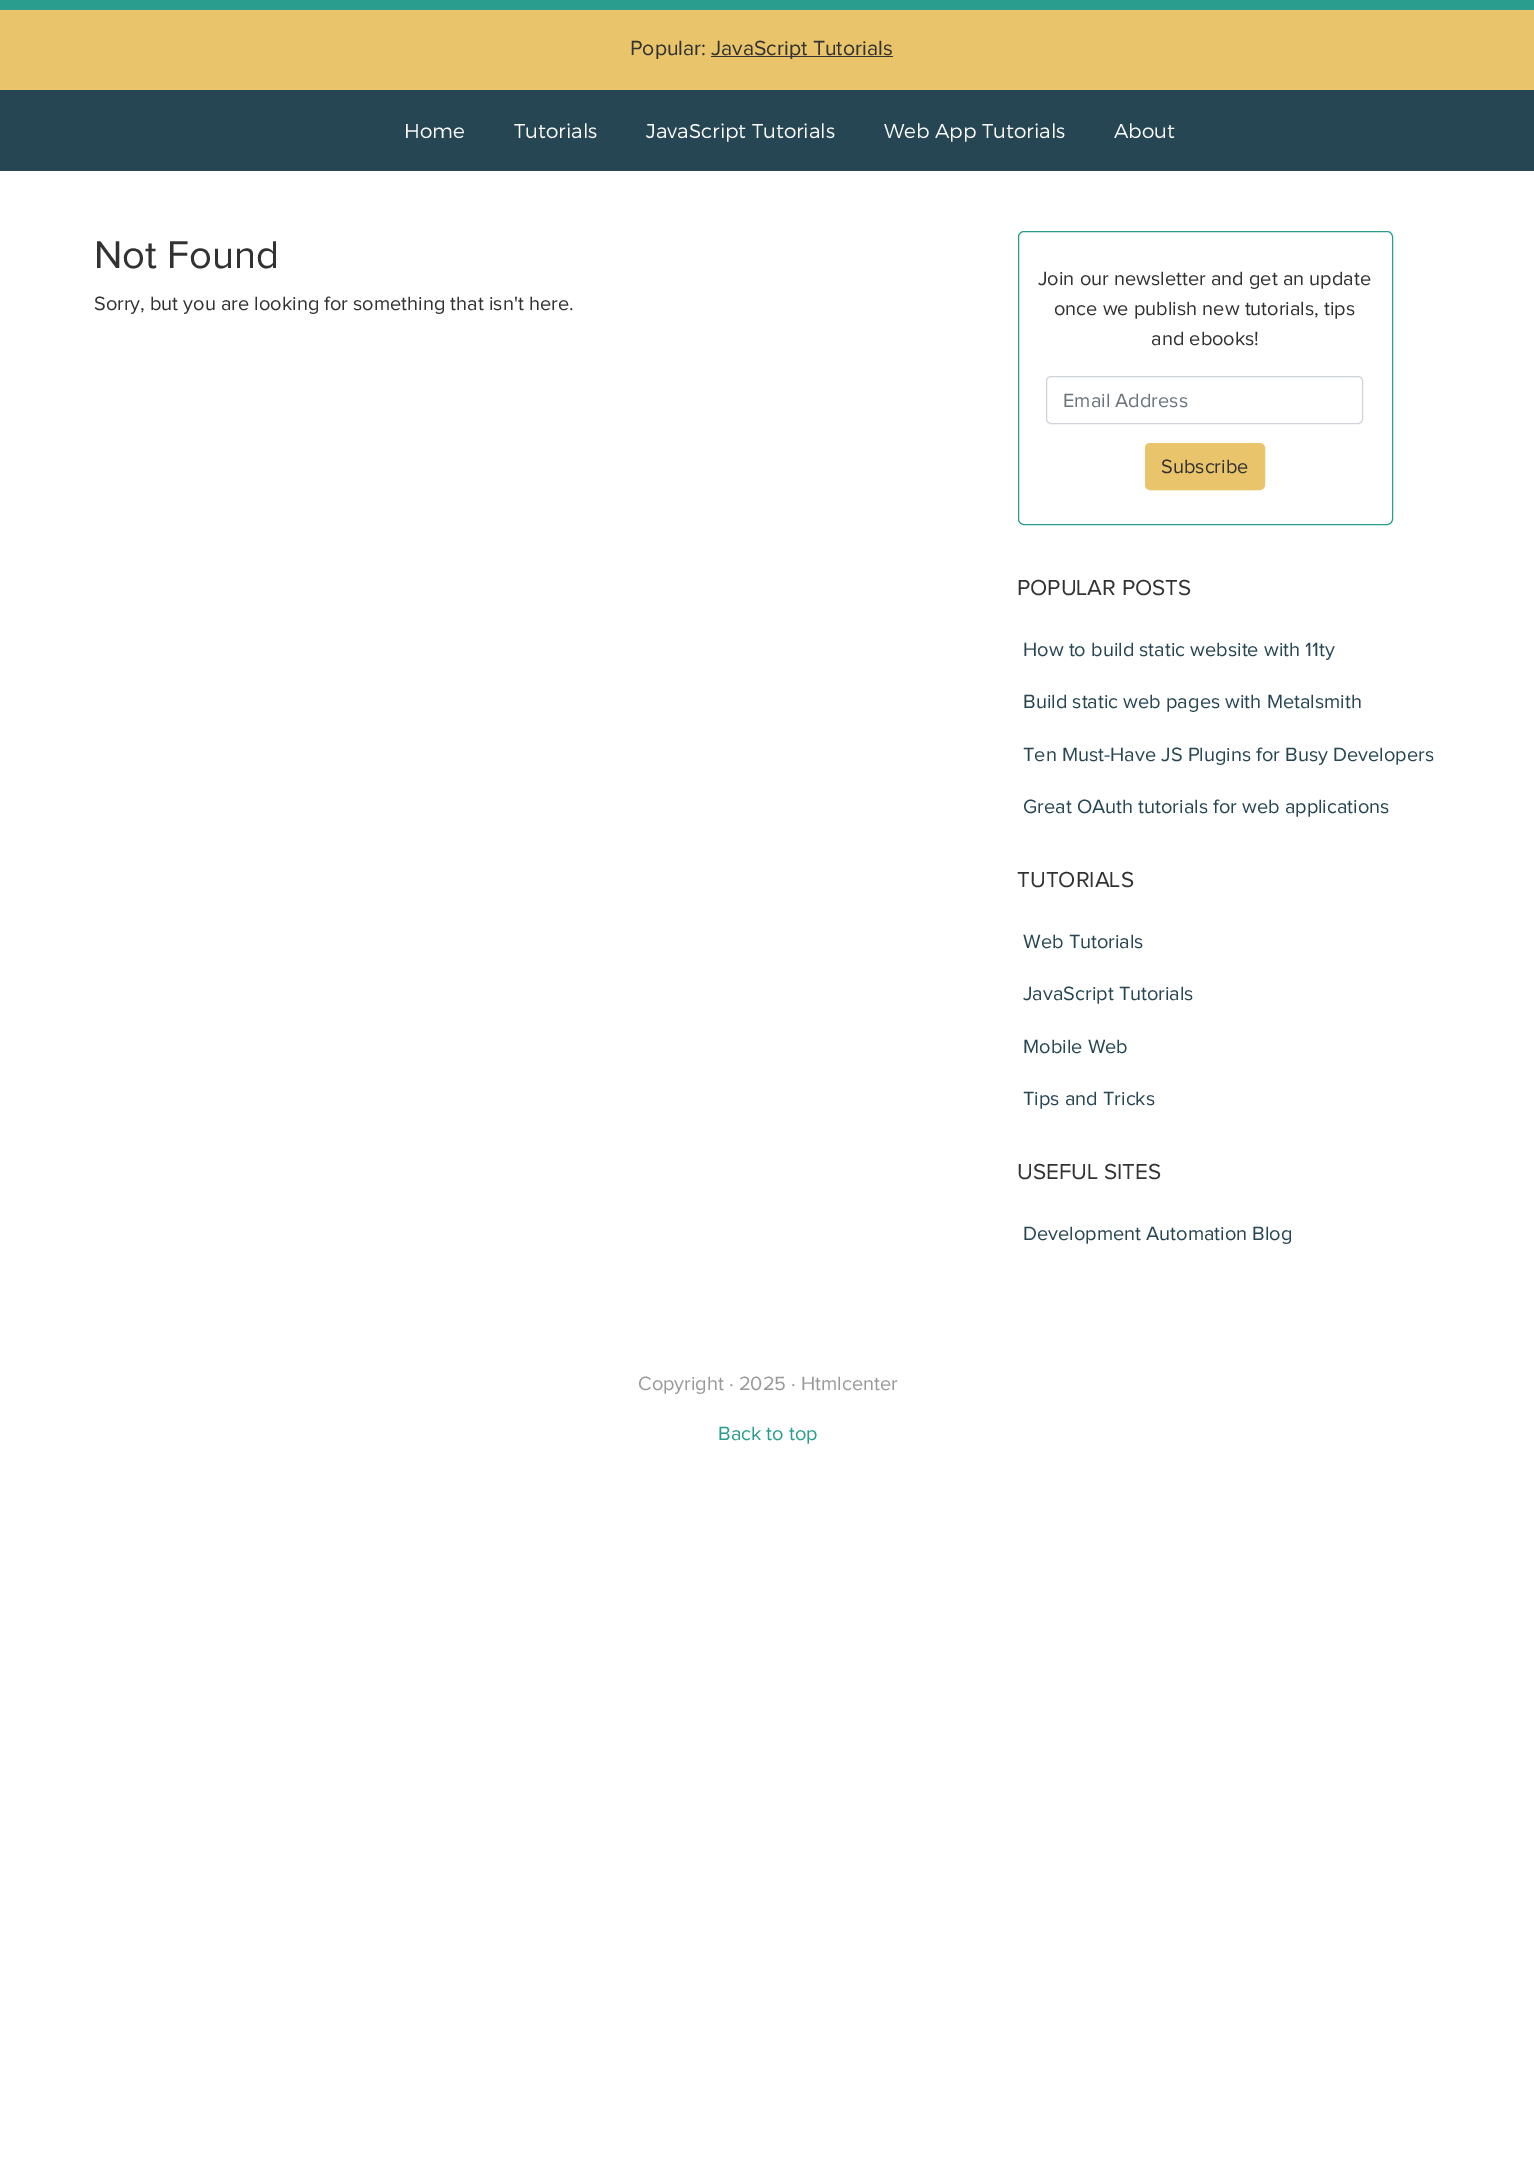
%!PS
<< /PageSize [1534 2174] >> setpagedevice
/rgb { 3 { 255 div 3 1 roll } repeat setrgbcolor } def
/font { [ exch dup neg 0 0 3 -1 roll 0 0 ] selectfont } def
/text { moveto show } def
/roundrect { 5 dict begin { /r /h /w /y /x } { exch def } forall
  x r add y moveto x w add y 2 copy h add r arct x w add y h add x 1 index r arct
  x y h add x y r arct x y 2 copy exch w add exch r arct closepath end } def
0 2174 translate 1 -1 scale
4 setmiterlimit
255 255 255 rgb
0 0 1534 2174 rectfill
42 157 143 rgb
0 0 1534 10 rectfill
233 196 106 rgb
0 10 1534 80 rectfill
50 50 50 rgb
711 56 182 1 rectfill
38 70 83 rgb
0 90 1534 81 rectfill
42 157 143 rgb
1018.5 231.5 374 293 5.5 roundrect stroke
206 212 218 rgb
1046.5 376.5 316 47 4.5 roundrect stroke
233 196 106 rgb
1145.5 443.5 119 46 4.5 roundrect gsave fill grestore
stroke
/ProximaNova-Regular 21.25 font
50 50 50 rgb
(Popular:) 630 55 text
(JavaScript Tutorials) 711 55 text
/Montserrat-Light 20 font
255 255 255 rgb
(Home) 404 138 text
(Tutorials) 514 138 text
(JavaScript Tutorials) 646 138 text
(Web App Tutorials) 884 138 text
(About) 1114 138 text
/ProximaNova-Regular 40 font
50 50 50 rgb
(Not Found) 94 268 text
/ProximaNova-Regular 20 font
(Sorry, but you are looking for something that isn't here.) 94 310 text
(Join our newsletter and get an update) 1038 285 text
(once we publish new tutorials, tips) 1054 315 text
(and ebooks!) 1151 345 text
108 117 125 rgb
(Email Address) 1063 407 text
50 50 50 rgb
(Subscribe) 1161 473 text
/ProximaNova-Regular 22.5 font
(POPULAR POSTS) 1017 595 text
/ProximaNova-Regular 20 font
38 70 83 rgb
(How to build static website with 11ty) 1023 656 text
(Build static web pages with Metalsmith) 1023 708 text
(Ten Must-Have JS Plugins for Busy Developers) 1023 761 text
(Great OAuth tutorials for web applications) 1023 813 text
/ProximaNova-Regular 22.5 font
50 50 50 rgb
(TUTORIALS) 1017 887 text
/ProximaNova-Regular 20 font
38 70 83 rgb
(Web Tutorials) 1023 948 text
(JavaScript Tutorials) 1023 1000 text
(Mobile Web) 1023 1053 text
(Tips and Tricks) 1023 1105 text
/ProximaNova-Regular 22.5 font
50 50 50 rgb
(USEFUL SITES) 1017 1179 text
/ProximaNova-Regular 20 font
38 70 83 rgb
(Development Automation Blog) 1023 1240 text
153 153 153 rgb
(Copyright · 2025 · Htmlcenter) 638 1390 text
42 157 143 rgb
(Back to top) 718 1440 text
showpage
